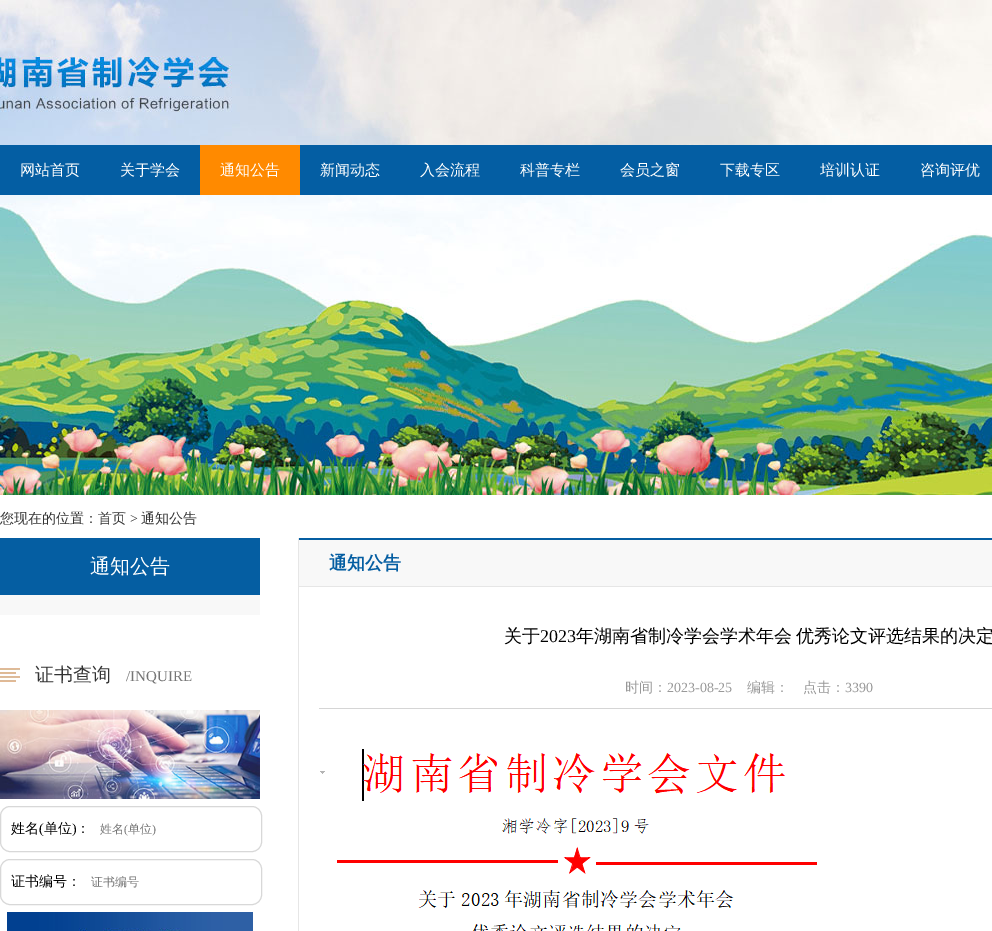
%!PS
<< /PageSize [992 931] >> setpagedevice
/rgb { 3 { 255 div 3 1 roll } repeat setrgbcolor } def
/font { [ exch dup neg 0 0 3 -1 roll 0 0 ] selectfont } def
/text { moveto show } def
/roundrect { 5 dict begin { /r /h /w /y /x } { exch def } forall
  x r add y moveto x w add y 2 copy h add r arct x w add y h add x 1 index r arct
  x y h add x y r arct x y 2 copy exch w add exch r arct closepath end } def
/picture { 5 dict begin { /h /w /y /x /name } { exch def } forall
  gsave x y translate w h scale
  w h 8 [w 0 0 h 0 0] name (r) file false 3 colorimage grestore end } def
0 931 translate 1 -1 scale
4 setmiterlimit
255 255 255 rgb
0 0 992 931 rectfill
(img_01.rgb) 0 0 992 145 picture
4 94 163 rgb
0 145 992 50 rectfill
255 138 0 rgb
200 145 100 50 rectfill
(img_02.rgb) 0 195 992 300 picture
248 248 248 rgb
0 595 260 20 rectfill
5 94 162 rgb
0 538 260 57 rectfill
(img_03.rgb) 0 668 20 14 picture
(img_04.rgb) 0 710 260 89 picture
216 216 216 rgb
0.5 806.5 261 45 9.5 roundrect stroke
0.5 859.5 261 45 9.5 roundrect stroke
(img_05.rgb) 7 912 246 19 picture
230 230 230 rgb
298 538 1 393 rectfill
248 248 248 rgb
299 540 693 46 rectfill
5 94 162 rgb
299 538 693 2 rectfill
230 230 230 rgb
299 586 693 1 rectfill
213 213 213 rgb
319 708 673 1 rectfill
(img_06.rgb) 320 749 497 182 picture
/WenQuanYiZenHei-Medium 15 font
255 255 255 rgb
(网站首页) 20 175 text
(关于学会) 120 175 text
(通知公告) 220 175 text
(新闻动态) 320 175 text
(入会流程) 420 175 text
(科普专栏) 520 175 text
(会员之窗) 620 175 text
(下载专区) 720 175 text
(培训认证) 820 175 text
(咨询评优) 920 175 text
/WenQuanYiZenHei-Medium 14 font
51 51 51 rgb
(您现在的位置：首页) 0 523 text
/LiberationSerif-Regular 14 font
(>) 130 523 text
/WenQuanYiZenHei-Medium 14 font
(通知公告) 141 523 text
/WenQuanYiZenHei-Medium 20 font
255 255 255 rgb
(通知公告) 90 573 text
/WenQuanYiZenHei-Medium 19 font
51 51 51 rgb
(证书查询) 35 681 text
/LiberationSerif-Regular 15 font
117 117 117 rgb
(/INQUIRE) 126 681 text
/WenQuanYiZenHei-Medium 14 font
0 0 0 rgb
(姓名) 11 833 text
/LiberationSerif-Regular 14 font
(\() 39 833 text
/WenQuanYiZenHei-Medium 14 font
(单位) 44 833 text
/LiberationSerif-Regular 14 font
(\)) 72 833 text
/WenQuanYiZenHei-Medium 14 font
(：) 76 833 text
/WenQuanYiZenHei-Medium 12 font
117 117 117 rgb
(姓名) 100 833 text
/LiberationSerif-Regular 12 font
(\() 124 833 text
/WenQuanYiZenHei-Medium 12 font
(单位) 128 833 text
/LiberationSerif-Regular 12 font
(\)) 152 833 text
/WenQuanYiZenHei-Medium 14 font
0 0 0 rgb
(证书编号：) 11 886 text
/WenQuanYiZenHei-Medium 12 font
117 117 117 rgb
(证书编号) 91 886 text
/WenQuanYiZenHei-Bold 18 font
5 94 162 rgb
(通知公告) 329 569 text
/WenQuanYiZenHei-Medium 18 font
0 0 0 rgb
(关于) 504 642 text
/LiberationSerif-Regular 18 font
(2023) 540 642 text
/WenQuanYiZenHei-Medium 18 font
576 642 moveto -1 0 32 (年湖南省制冷学会学术年会 优秀论文评选结果的决定) widthshow
/WenQuanYiZenHei-Medium 14 font
153 153 153 rgb
(时间：) 625 692 text
/LiberationSerif-Regular 14 font
(2023-08-25) 667 692 text
/WenQuanYiZenHei-Medium 14 font
(编辑：) 747 692 text
(点击：) 803 692 text
/LiberationSerif-Regular 14 font
(3390) 845 692 text
showpage
